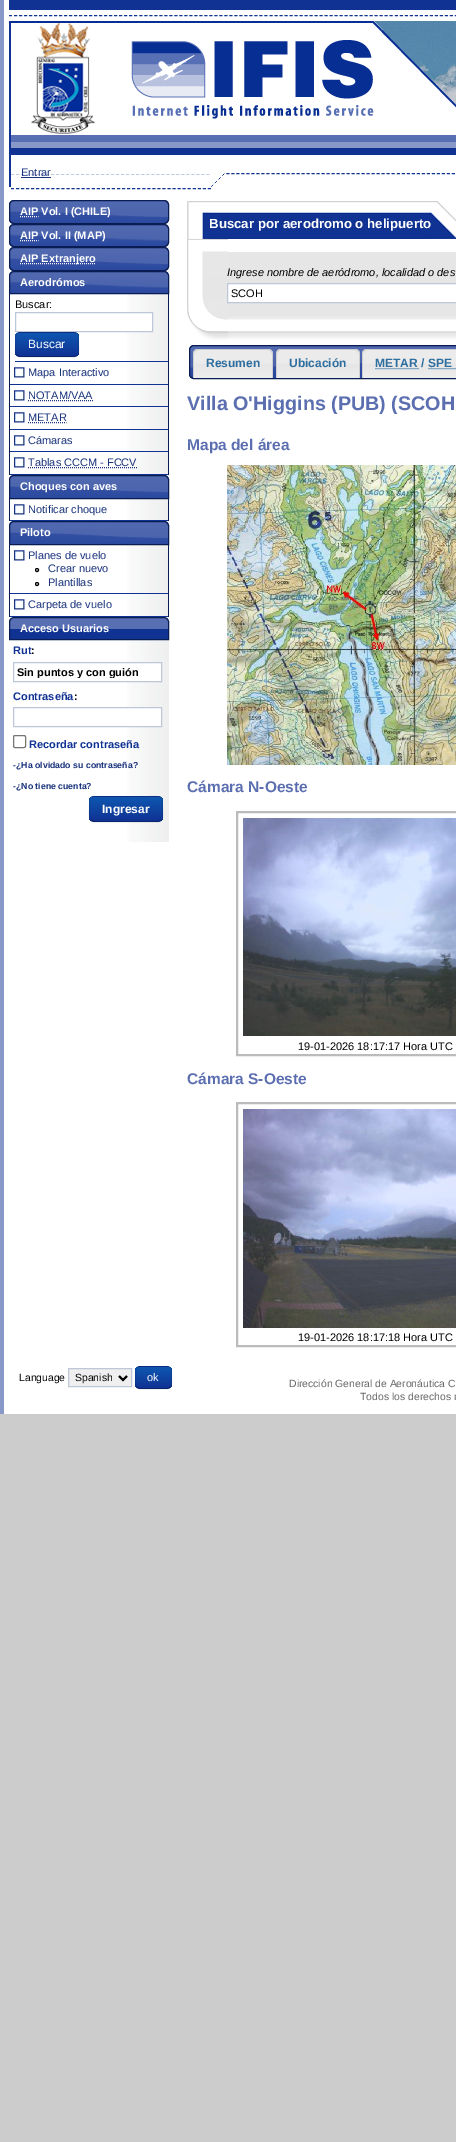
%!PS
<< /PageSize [456 2142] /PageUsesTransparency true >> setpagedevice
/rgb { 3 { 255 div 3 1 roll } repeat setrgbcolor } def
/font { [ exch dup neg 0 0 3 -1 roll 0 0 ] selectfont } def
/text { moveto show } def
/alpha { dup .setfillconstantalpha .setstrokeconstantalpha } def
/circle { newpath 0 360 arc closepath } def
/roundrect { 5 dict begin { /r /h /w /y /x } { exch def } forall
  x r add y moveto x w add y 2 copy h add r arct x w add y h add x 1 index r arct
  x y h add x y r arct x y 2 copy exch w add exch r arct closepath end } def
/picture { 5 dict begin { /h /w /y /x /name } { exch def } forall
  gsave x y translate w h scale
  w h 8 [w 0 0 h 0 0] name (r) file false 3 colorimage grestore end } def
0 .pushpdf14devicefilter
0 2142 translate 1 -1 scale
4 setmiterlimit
204 204 204 rgb
0 0 456 2142 rectfill
255 255 255 rgb
4 0 452 1414 rectfill
136 152 201 rgb
0 0 4 1414 rectfill
16 50 147 rgb
9 0 447 10 rectfill
[3 2.01] 0 setdash
9 15.5 moveto 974 0 rlineto stroke
9 21 2 166 rectfill
(img_03.rgb) 374 21 82 84 picture
(img_02.rgb) 113 21 343 104 picture
7 46 147 rgb
11 21 110 2 rectfill
(img_01.rgb) 31 23 64 111 picture
(img_04.rgb) 11 135 445 20 picture
16 50 147 rgb
11 173.5 moveto 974 0 rlineto stroke
255 255 255 rgb
11 173 214 1 rectfill
(img_05.rgb) 211 173 14 14 picture
16 50 147 rgb
[3 2.05] 0 setdash
11 188.5 moveto 200 0 rlineto stroke
24 50 124 rgb
21 177 30 1 rectfill
(img_06.rgb) 127 200 42 642 picture
(img_07.rgb) 9 200 160 24 picture
10 29 82 rgb
[] 0 setdash
9.5 200.5 159 23 4.5 roundrect stroke
255 255 255 rgb
[1 1] 0 setdash
20 216.5 moveto 18.5 0 rlineto stroke
(img_08.rgb) 9 224 160 23 picture
10 29 82 rgb
[] 0 setdash
9.5 224.5 159 22 4.5 roundrect stroke
255 255 255 rgb
[1 1] 0 setdash
20 240.5 moveto 18.5 0 rlineto stroke
(img_09.rgb) 9 247 160 24 picture
10 29 82 rgb
[] 0 setdash
9.5 247.5 159 23 4.5 roundrect stroke
255 255 255 rgb
[1 1] 0 setdash
20 263.5 moveto 76 0 rlineto stroke
(img_10.rgb) 9 271 160 22 picture
10 29 82 rgb
[] 0 setdash
14 271.5 moveto 150 0 rlineto 2.5 0 4.5 2 4.5 4.5 rcurveto 0 17.5 rlineto -159 0 rlineto 0 -17.5 rlineto 0 -2.5 2 -4.5 4.5 -4.5 rcurveto closepath stroke
168 294 1 181 rectfill
9 294 1 181 rectfill
16 50 147 rgb
15 361 153 1 rectfill
255 255 255 rgb
127 313 25 18 rectfill
189 199 216 rgb
15.5 312.5 137 19 rectstroke
16 50 147 rgb
15 332 64 25 5 roundrect fill
gsave
15 332 64 25 5 roundrect clip newpath
gsave 15 333 moveto 64 0 rlineto 0 23 rlineto -64 0 rlineto closepath clip newpath
<< /ShadingType 2 /ColorSpace /DeviceRGB /Coords [47 333 47 356] /Extend [true true] /Function << /FunctionType 2 /Domain [0 1] /C0 [0.055 0.341 0.694] /C1 [0.063 0.196 0.576] /N 1 >> >> shfill grestore
grestore
0.25 alpha
0 0 0 rgb
77 355 moveto -0.5 1 -2 1.5 -3 1.5 rcurveto -54 0 rlineto -1 0 -2.5 -0.5 -3 -1.5 rcurveto stroke
0.1 alpha
17 355 moveto -2.5 -2.5 -1.5 -7.5 -1.5 -10.5 rcurveto 0 -13 0 -12 13.5 -12 rcurveto 36 0 rlineto 11.5 0 13.5 -1.5 13.5 9.5 rcurveto 0 3.5 1.5 10.5 -1.5 13 rcurveto stroke
1 alpha
(img_11.rgb) 14 367 11 11 picture
16 50 147 rgb
10 384 158 1 rectfill
(img_11.rgb) 14 390 11 11 picture
10 406 158 1 rectfill
24 50 124 rgb
[1 1] 0 setdash
28 400.5 moveto 65 0 rlineto stroke
(img_11.rgb) 14 412 11 11 picture
16 50 147 rgb
10 429 158 1 rectfill
24 50 124 rgb
28 422.5 moveto 38.5 0 rlineto stroke
(img_11.rgb) 14 435 11 11 picture
16 50 147 rgb
10 451 158 1 rectfill
(img_11.rgb) 14 457 11 11 picture
10 474 158 1 rectfill
24 50 124 rgb
28 467.5 moveto 109 0 rlineto stroke
(img_12.rgb) 9 475 160 23 picture
10 29 82 rgb
[] 0 setdash
14 475.5 moveto 150 0 rlineto 2.5 0 4.5 2 4.5 4.5 rcurveto 0 18.5 rlineto -159 0 rlineto 0 -18.5 rlineto 0 -2.5 2 -4.5 4.5 -4.5 rcurveto closepath stroke
168 499 1 22 rectfill
9 499 1 22 rectfill
(img_11.rgb) 14 504 11 11 picture
16 50 147 rgb
10 520 158 1 rectfill
(img_12.rgb) 9 521 160 23 picture
10 29 82 rgb
14 521.5 moveto 150 0 rlineto 2.5 0 4.5 2 4.5 4.5 rcurveto 0 18.5 rlineto -159 0 rlineto 0 -18.5 rlineto 0 -2.5 2 -4.5 4.5 -4.5 rcurveto closepath stroke
168 545 1 72 rectfill
9 545 1 72 rectfill
(img_11.rgb) 14 550 11 11 picture
16 50 147 rgb
10 593 158 1 rectfill
0 0 0 rgb
37 570 1.5 circle stroke
37 584 1.5 circle stroke
(img_11.rgb) 14 599 11 11 picture
16 50 147 rgb
10 616 158 1 rectfill
(img_13.rgb) 9 618 160 21 picture
10 29 82 rgb
14 617.5 moveto 150 0 rlineto 2.5 0 4.5 2 4.5 4.5 rcurveto 0 17.5 rlineto -159 0 rlineto 0 -17.5 rlineto 0 -2.5 2 -4.5 4.5 -4.5 rcurveto closepath stroke
255 255 255 rgb
127 663 34 18 rectfill
189 199 216 rgb
13.5 662.5 148 19 rectstroke
255 255 255 rgb
127 708 34 18 rectfill
189 199 216 rgb
13.5 707.5 148 19 rectstroke
118 118 118 rgb
13.5 735.5 12 12 1.5 roundrect stroke
16 50 147 rgb
89 796 74 26 5 roundrect fill
gsave
89 796 74 26 5 roundrect clip newpath
gsave 89 797 moveto 74 0 rlineto 0 24 rlineto -74 0 rlineto closepath clip newpath
<< /ShadingType 2 /ColorSpace /DeviceRGB /Coords [126 797 126 821] /Extend [true true] /Function << /FunctionType 2 /Domain [0 1] /C0 [0.055 0.341 0.694] /C1 [0.063 0.196 0.576] /N 1 >> >> shfill grestore
grestore
0.25 alpha
0 0 0 rgb
161 820 moveto -2.5 1.5 rlineto -65 0 rlineto -2.5 -1.5 rlineto stroke
0.1 alpha
91 820 moveto -3 -2.5 -1.5 -10.5 -1.5 -13.5 rcurveto 0 -12.5 2 -10 15 -10 rcurveto 43 0 rlineto 15 0 15 -2 15 12.5 rcurveto 0 3 1.5 8.5 -1.5 11 rcurveto stroke
1 alpha
(img_14.rgb) 187 201 22 38 picture
(img_15.rgb) 430 201 26 38 picture
(img_16.rgb) 209 201 221 38 picture
230 230 230 rgb
203 252 253 65 rectfill
(img_17.rgb) 187 239 41 37 picture
(img_18.rgb) 187 276 16 22 picture
(img_19.rgb) 187 298 41 44 picture
255 255 255 rgb
227.5 283.5 moveto 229 0 rlineto 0 19 rlineto -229 0 rlineto closepath gsave fill grestore
189 199 216 rgb
stroke
(img_20.rgb) 228 317 228 25 picture
(img_21.rgb) 189 345 267 34 picture
10 29 82 rgb
189.5 345.5 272 33 4.5 roundrect stroke
(img_22.rgb) 193 349 80 29 picture
207 207 207 rgb
198 349 moveto 70 0 rlineto 3 0 5 2 5 5 rcurveto 0 24 rlineto -80 0 rlineto 0 -24 rlineto 0 -3 2 -5 5 -5 rcurveto closepath 198 350 moveto 70 0 rlineto 2 0 4 2 4 4 rcurveto 0 24 rlineto -78 0 rlineto 0 -24 rlineto 0 -2 2 -4 4 -4 rcurveto closepath eofill
(img_23.rgb) 276 349 84 29 picture
281 349 moveto 74 0 rlineto 3 0 5 2 5 5 rcurveto 0 24 rlineto -84 0 rlineto 0 -24 rlineto 0 -3 2 -5 5 -5 rcurveto closepath 281 350 moveto 74 0 rlineto 2 0 4 2 4 4 rcurveto 0 24 rlineto -82 0 rlineto 0 -24 rlineto 0 -2 2 -4 4 -4 rcurveto closepath eofill
(img_24.rgb) 362 349 94 29 picture
367 349 moveto 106 0 rlineto 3 0 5 2 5 5 rcurveto 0 24 rlineto -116 0 rlineto 0 -24 rlineto 0 -3 2 -5 5 -5 rcurveto closepath 367 350 moveto 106 0 rlineto 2 0 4 2 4 4 rcurveto 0 24 rlineto -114 0 rlineto 0 -24 rlineto 0 -2 2 -4 4 -4 rcurveto closepath eofill
46 110 158 rgb
[1 1] 0 setdash
375.5 368.5 moveto 43 0 rlineto stroke
428.5 368.5 moveto 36 0 rlineto stroke
(img_25.rgb) 227 465 229 300 picture
187 187 187 rgb
2 setlinewidth
[] 0 setdash
237 812 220 243 rectstroke
(img_26.rgb) 243 818 213 218 picture
237 1103 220 243 rectstroke
(img_27.rgb) 243 1109 213 219 picture
239 239 239 rgb
68.5 1368.5 moveto 63 0 rlineto 0 18 rlineto -63 0 rlineto closepath gsave fill grestore
189 199 216 rgb
1 setlinewidth
stroke
0 0 0 rgb
2 setlinewidth
119 1376 moveto 4 4 rlineto 4 -4 rlineto stroke
16 50 147 rgb
135 1366 37 23 5 roundrect fill
gsave
135 1366 37 23 5 roundrect clip newpath
gsave 135 1367 moveto 37 0 rlineto 0 21 rlineto -37 0 rlineto closepath clip newpath
<< /ShadingType 2 /ColorSpace /DeviceRGB /Coords [154 1367 154 1388] /Extend [true true] /Function << /FunctionType 2 /Domain [0 1] /C0 [0.055 0.341 0.694] /C1 [0.063 0.196 0.576] /N 1 >> >> shfill grestore
grestore
0.25 alpha
0 0 0 rgb
1 setlinewidth
170 1387 moveto -0.5 1 -2 1.5 -3 1.5 rcurveto -27 0 rlineto -1 0 -2.5 -0.5 -3 -1.5 rcurveto stroke
0.1 alpha
137 1387 moveto -2.5 -2 -1.5 -6.5 -1.5 -9.5 rcurveto 0 -7.5 rlineto 1 -4 5.5 -3.5 9 -3.5 rcurveto 18 0 rlineto 3.5 0 8 -0.5 9 3.5 rcurveto 0 7.5 rlineto 0 3 1 7.5 -1.5 9.5 rcurveto stroke
/LiberationSans-Regular 11 font
1 alpha
24 50 124 rgb
(Entrar) 21 176 text
/LiberationSans-Bold 11 font
255 255 255 rgb
(AIP Vol. I \(CHILE\)) 20 215 text
(AIP Vol. II \(MAP\)) 20 239 text
(AIP Extranjero) 20 262 text
(Aerodrómos) 20 286 text
/LiberationSans-Regular 11 font
0 0 0 rgb
(Buscar:) 15 308 text
/LiberationSans-Regular 12 font
255 255 255 rgb
(Buscar) 28 348 text
/LiberationSans-Regular 11 font
24 50 124 rgb
(Mapa Interactivo) 28 376 text
(NOTAM/VAA) 28 399 text
(METAR) 28 421 text
(Cámaras) 28 444 text
(Tablas CCCM - FCCV) 28 466 text
/LiberationSans-Bold 11 font
255 255 255 rgb
(Choques con aves) 20 490 text
/LiberationSans-Regular 11 font
24 50 124 rgb
(Notificar choque) 28 513 text
/LiberationSans-Bold 11 font
255 255 255 rgb
(Piloto) 20 536 text
/LiberationSans-Regular 11 font
24 50 124 rgb
(Planes de vuelo) 28 559 text
(Crear nuevo) 48 572 text
(Plantillas) 48 586 text
(Carpeta de vuelo) 28 608 text
/LiberationSans-Bold 11 font
255 255 255 rgb
(Acceso Usuarios) 20 632 text
16 50 147 rgb
(Rut) 13 654 text
0 0 0 rgb
(:) 31 654 text
gsave
17 666 141 12 rectclip
(Sin puntos y con guión) 17 676 text
grestore
16 50 147 rgb
(Contraseña) 13 700 text
0 0 0 rgb
(:) 74 700 text
16 50 147 rgb
(Recordar contraseña) 29 748 text
/LiberationSans-Bold 8.75 font
24 50 124 rgb
(-¿Ha olvidado su contraseña?) 13 768 text
(-¿No tiene cuenta?) 13 789 text
/LiberationSans-Bold 12 font
255 255 255 rgb
(Ingresar) 102 813 text
/LiberationSans-Bold 13.25 font
(Buscar por aerodromo o helipuerto) 209 228 text
/LiberationSans-Italic 11 font
0 0 0 rgb
(Ingrese nombre de aeródromo, localidad o des) 227 276 text
/LiberationSans-Regular 11 font
(SCOH) 231 297 text
/LiberationSans-Bold 12 font
46 110 158 rgb
(Resumen) 206 367 text
(Ubicación) 289 367 text
(METAR / SPE) 375 367 text
/LiberationSans-Bold 19.75 font
91 110 176 rgb
(Villa O'Higgins \(PUB\) \(SCOH) 187 410 text
/LiberationSans-Bold 15.5 font
(Mapa del área) 187 450 text
(Cámara N-Oeste) 187 792 text
/LiberationSans-Regular 11 font
0 0 0 rgb
(19-01-2026 18:17:17 Hora UTC) 298 1050 text
/LiberationSans-Bold 15.5 font
91 110 176 rgb
(Cámara S-Oeste) 187 1084 text
/LiberationSans-Regular 11 font
0 0 0 rgb
(19-01-2026 18:17:18 Hora UTC) 298 1341 text
/LiberationSans-Regular 10.4 font
(Language) 19 1381 text
(Spanish) 75 1381 text
/LiberationSans-Regular 11 font
255 255 255 rgb
(ok) 147 1381 text
/LiberationSans-Regular 10.4 font
102 102 102 rgb
(Dirección General de Aeronáutica C) 289 1387 text
(Todos los derechos r) 360 1400 text
.poppdf14devicefilter showpage
